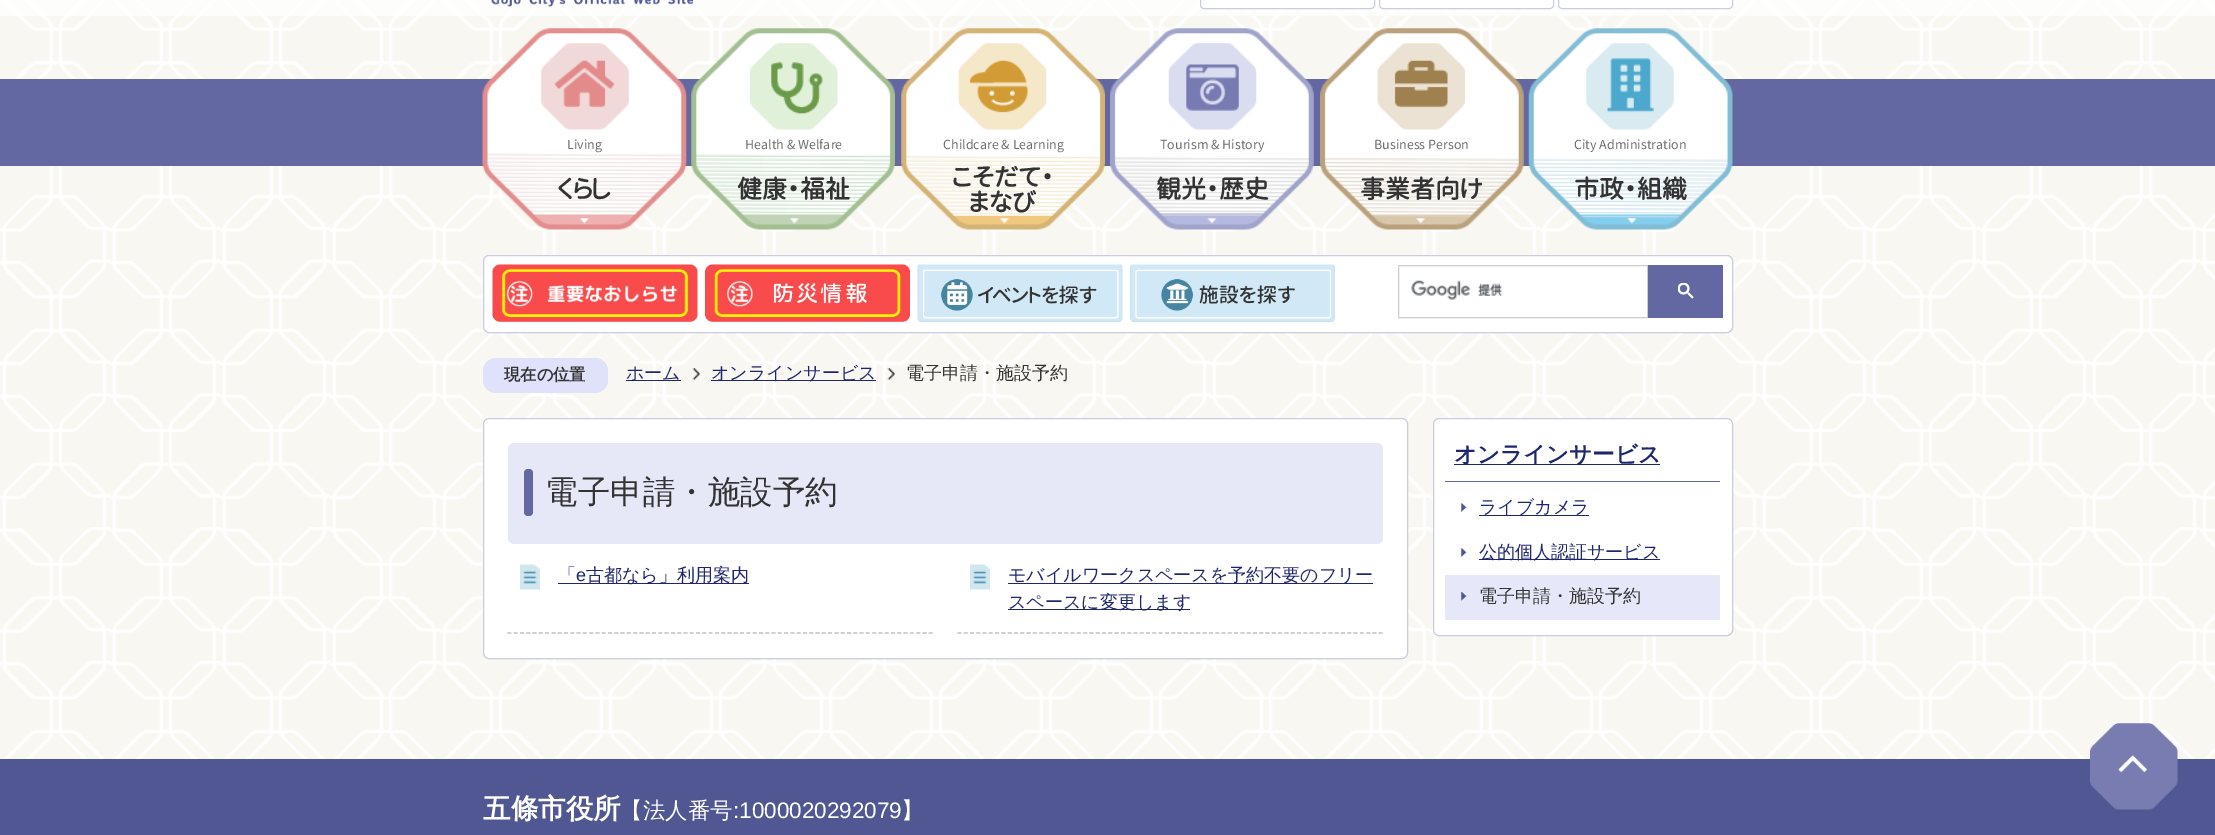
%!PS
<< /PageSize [2215 835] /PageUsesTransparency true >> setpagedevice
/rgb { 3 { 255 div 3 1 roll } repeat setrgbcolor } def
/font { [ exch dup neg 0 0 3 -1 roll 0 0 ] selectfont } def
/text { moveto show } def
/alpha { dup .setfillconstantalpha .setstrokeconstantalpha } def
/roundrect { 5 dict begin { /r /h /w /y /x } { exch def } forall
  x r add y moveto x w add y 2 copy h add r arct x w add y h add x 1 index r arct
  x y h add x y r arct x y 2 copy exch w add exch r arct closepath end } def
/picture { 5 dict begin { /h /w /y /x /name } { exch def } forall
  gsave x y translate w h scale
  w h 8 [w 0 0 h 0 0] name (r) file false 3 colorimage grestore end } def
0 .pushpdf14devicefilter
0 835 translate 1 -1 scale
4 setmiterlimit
248 247 242 rgb
0 0 2215 835 rectfill
(img_01.rgb) 0 0 2215 759 picture
0.7 alpha
255 255 255 rgb
0 0 2215 16 rectfill
1 alpha
(img_02.rgb) 491 0 203 7 picture
1200.5 -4.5 174 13 3.5 roundrect gsave fill grestore
202 204 223 rgb
stroke
255 255 255 rgb
1379.5 -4.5 174 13 3.5 roundrect gsave fill grestore
202 204 223 rgb
stroke
255 255 255 rgb
1558.5 -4.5 174 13 3.5 roundrect gsave fill grestore
202 204 223 rgb
stroke
99 104 162 rgb
0 79 2215 87 rectfill
(img_03.rgb) 482 28 205 202 picture
(img_04.rgb) 691 28 204 202 picture
(img_05.rgb) 901 28 204 202 picture
(img_06.rgb) 1110 28 204 202 picture
(img_07.rgb) 1320 28 204 202 picture
(img_08.rgb) 1528 28 205 202 picture
255 255 255 rgb
483 255 1250 78 6 roundrect fill
0.3 alpha
80 85 150 rgb
483.5 255.5 1249 77 5.5 roundrect stroke
1 alpha
(img_09.rgb) 492 264 206 58 picture
(img_10.rgb) 705 264 205 58 picture
(img_11.rgb) 917 264 206 58 picture
(img_12.rgb) 1130 264 205 58 picture
204 204 204 rgb
1398.5 265.5 249 52 rectstroke
(img_13.rgb) 1411 280 92 20 picture
99 104 162 rgb
1648 265 75 53 rectfill
(img_14.rgb) 1678 283 16 16 picture
224 225 250 rgb
483 358 125 35 13 roundrect fill
32 38 110 rgb
626 380 55 1 rectfill
(img_15.rgb) 692 368 8 12 picture
711 380 165 1 rectfill
(img_15.rgb) 887 368 8 12 picture
255 255 255 rgb
483 418 925 241 6 roundrect fill
0.3 alpha
80 85 150 rgb
483.5 418.5 924 240 5.5 roundrect stroke
1 alpha
230 232 248 rgb
508 443 875 101 6 roundrect fill
99 104 162 rgb
524 469 9 47 4 roundrect fill
(img_16.rgb) 520 564 20 26 picture
191 191 191 rgb
1.2 setlinewidth
[3.75 2.54] 0 setdash
507.5 633 moveto 425 0 rlineto stroke
32 38 110 rgb
558 583 191 1 rectfill
(img_16.rgb) 970 564 20 26 picture
191 191 191 rgb
957.5 633 moveto 425 0 rlineto stroke
32 38 110 rgb
1008 583 365 1 rectfill
1008 609 182 1 rectfill
255 255 255 rgb
1433 418 300 218 6 roundrect fill
0.3 alpha
80 85 150 rgb
1 setlinewidth
[] 0 setdash
1433.5 418.5 299 217 5.5 roundrect stroke
1 alpha
99 104 162 rgb
1445 481 275 1 rectfill
32 38 110 rgb
1454 464 206 1 rectfill
(img_17.rgb) 1461 503 6 9 picture
1479 515 110 1 rectfill
(img_17.rgb) 1461 548 6 9 picture
1479 559 181 1 rectfill
230 232 250 rgb
1445 575 275 45 rectfill
(img_18.rgb) 1461 592 6 9 picture
80 87 146 rgb
0 759 2215 76 rectfill
(img_19.rgb) 2090 723 88 87 picture
/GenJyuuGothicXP-Regular 12.5 font
109 109 109 rgb
(Living) 567 149 text
/GenJyuuGothicXP-Bold 25 font
51 51 51 rgb
(くらし) 557 198 text
/GenJyuuGothicXP-Regular 12.5 font
109 109 109 rgb
(Health & Welfare) 745 149 text
/GenJyuuGothicXP-Bold 25 font
51 51 51 rgb
(健康・福祉) 737 198 text
/GenJyuuGothicXP-Regular 12.5 font
109 109 109 rgb
(Childcare & Learning) 943 149 text
/GenJyuuGothicXP-Bold 25 font
51 51 51 rgb
(こそだて・) 952 186 text
(まなび) 969 211 text
/GenJyuuGothicXP-Regular 12.5 font
109 109 109 rgb
(Tourism & History) 1160 149 text
/GenJyuuGothicXP-Bold 25 font
51 51 51 rgb
(観光・歴史) 1156 198 text
/GenJyuuGothicXP-Regular 12.5 font
109 109 109 rgb
(Business Person) 1374 149 text
/GenJyuuGothicXP-Bold 25 font
51 51 51 rgb
(事業者向け) 1360 198 text
/GenJyuuGothicXP-Regular 12.5 font
109 109 109 rgb
(City Administration) 1574 149 text
/GenJyuuGothicXP-Bold 25 font
51 51 51 rgb
(市政・組織) 1574 198 text
/WenQuanYiZenHei-Bold 16.25 font
(現在の位置) 504 380 text
/WenQuanYiZenHei-Medium 18 font
32 38 110 rgb
(ホーム) 626 379 text
(オンラインサービス) 711 379 text
51 51 51 rgb
(電子申請・施設予約) 906 379 text
/WenQuanYiZenHei-Medium 32.5 font
(電子申請・施設予約) 545 503 text
/WenQuanYiZenHei-Medium 18 font
32 38 110 rgb
(「) 558 581 text
/LiberationSans-Regular 18 font
(e) 576 581 text
/WenQuanYiZenHei-Medium 18 font
(古都なら」利用案内) 586 581 text
(モバイルワークスペースを予約不要のフリー) 1008 581 text
(スペースに変更します) 1008 608 text
/WenQuanYiZenHei-Bold 22.5 font
(オンラインサービス) 1454 462 text
/WenQuanYiZenHei-Medium 18 font
(ライブカメラ) 1479 513 text
(公的個人認証サービス) 1479 558 text
51 51 51 rgb
(電子申請・施設予約) 1479 602 text
/WenQuanYiZenHei-Bold 27.5 font
255 255 255 rgb
(五條市役所) 483 818 text
/WenQuanYiZenHei-Medium 22.5 font
(【法人番号) 620 818 text
/LiberationSans-Regular 22.5 font
(:1000020292079) 733 818 text
/WenQuanYiZenHei-Medium 22.5 font
(】) 901 818 text
.poppdf14devicefilter showpage
